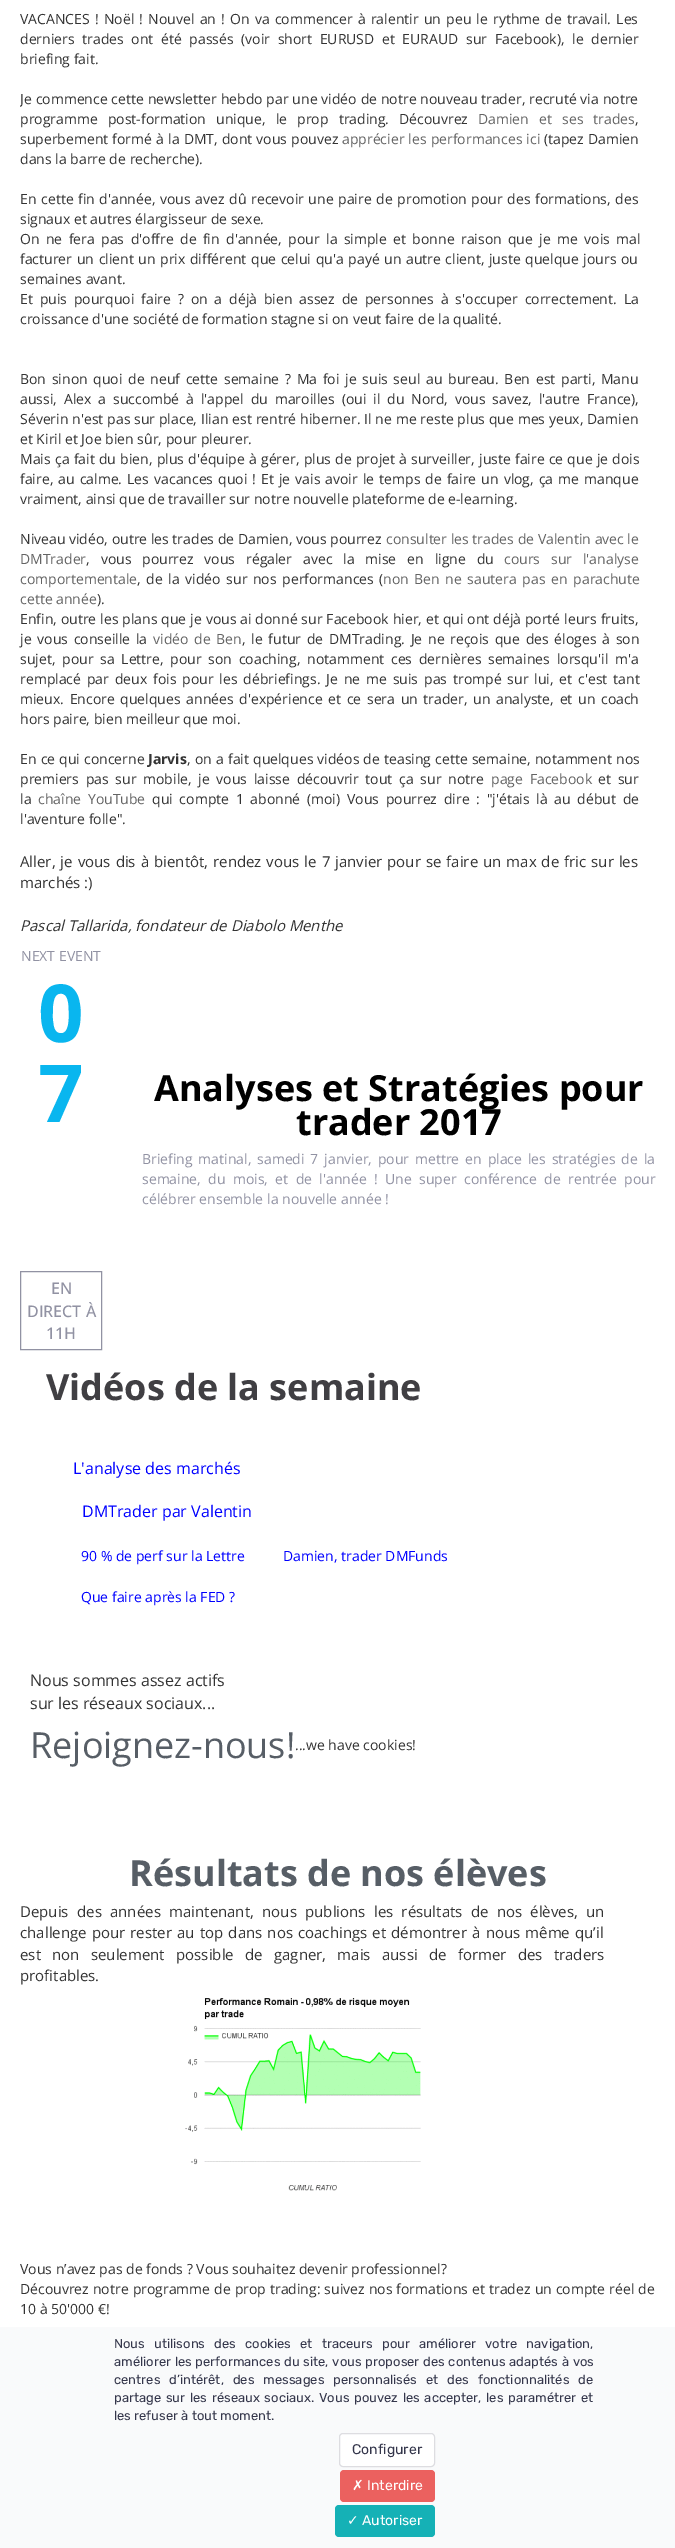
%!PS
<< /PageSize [675 2548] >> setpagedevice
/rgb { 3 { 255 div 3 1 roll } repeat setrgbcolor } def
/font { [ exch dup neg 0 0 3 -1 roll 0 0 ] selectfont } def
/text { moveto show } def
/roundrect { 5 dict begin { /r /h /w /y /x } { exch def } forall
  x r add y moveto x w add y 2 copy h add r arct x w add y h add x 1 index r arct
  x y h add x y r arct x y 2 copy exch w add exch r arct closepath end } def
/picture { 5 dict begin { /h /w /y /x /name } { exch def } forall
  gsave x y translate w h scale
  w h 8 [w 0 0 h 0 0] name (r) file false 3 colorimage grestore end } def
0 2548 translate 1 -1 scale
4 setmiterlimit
255 255 255 rgb
0 0 675 2548 rectfill
145 146 163 rgb
20.5 1271.5 81 78 rectstroke
(img_01.rgb) 185 1998 236 193 picture
249 250 251 rgb
0 2327 675 221 rectfill
255 255 255 rgb
339.5 2433.5 95 33 3.5 roundrect gsave fill grestore
221 221 225 rgb
stroke
235 97 95 rgb
340 2470 95 32 4 roundrect fill
21 177 182 rgb
335 2505 100 32 4 roundrect fill
/OpenSans-Regular 14 font
51 51 51 rgb
20 24 moveto 1.6 0 32 (VACANCES ! Noël ! Nouvel an ! On va commencer à ralentir un peu le rythme de travail. Les) widthshow
20 44 moveto 4 0 32 (derniers trades ont été passés \(voir short EURUSD et EURAUD sur Facebook\), le dernier) widthshow
(briefing fait.) 20 64 text
gsave
20 0 635 2497 rectclip
20 104 moveto 0.25 0 32 (Je commence cette newsletter hebdo par une vidéo de notre nouveau trader, recruté via notre) widthshow
grestore
20 124 moveto 6.5 0 32 (programme post-formation unique, le prop trading. Découvrez) widthshow
100 100 100 rgb
478 124 moveto 6.5 0 32 (Damien et ses trades) widthshow
51 51 51 rgb
(,) 635 124 text
20 144 moveto 0.5 0 32 (superbement formé à la DMT, dont vous pouvez) widthshow
100 100 100 rgb
342 144 moveto 0.5 0 32 (apprécier les performances ici) widthshow
51 51 51 rgb
544 144 moveto 0.5 0 32 (\(tapez Damien) widthshow
(dans la barre de recherche\).) 20 164 text
20 204 moveto 1 0 32 (En cette fin d'année, vous avez dû recevoir une paire de promotion pour des formations, des) widthshow
(signaux et autres élargisseur de sexe.) 20 224 text
20 244 moveto 2.75 0 32 (On ne fera pas d'offre de fin d'année, pour la simple et bonne raison que je me vois mal) widthshow
20 264 moveto 1 0 32 (facturer un client un prix différent que celui qu'a payé un autre client, juste quelque jours ou) widthshow
(semaines avant.) 20 284 text
20 304 moveto 3.25 0 32 (Et puis pourquoi faire ? on a déjà bien assez de personnes à s'occuper correctement. La) widthshow
(croissance d'une société de formation stagne si on veut faire de la qualité.) 20 324 text
20 384 moveto 2.1 0 32 (Bon sinon quoi de neuf cette semaine ? Ma foi je suis seul au bureau. Ben est parti, Manu) widthshow
20 404 moveto 3.25 0 32 (aussi, Alex a succombé à l'appel du maroilles \(oui il du Nord, vous savez, l'autre France\),) widthshow
20 424 moveto 0.25 0 32 (Séverin n'est pas sur place, Ilian est rentré hiberner. Il ne me reste plus que mes yeux, Damien) widthshow
(et Kiril et Joe bien sûr, pour pleurer.) 20 444 text
20 464 moveto 0.6 0 32 (Mais ça fait du bien, plus d'équipe à gérer, plus de projet à surveiller, juste faire ce que je dois) widthshow
20 484 moveto 1.4 0 32 (faire, au calme. Les vacances quoi ! Et je vais avoir le temps de faire un vlog, ça me manque) widthshow
(vraiment, ainsi que de travailler sur notre nouvelle plateforme de e-learning.) 20 504 text
(Niveau vidéo, outre les trades de Damien, vous pourrez) 20 544 text
100 100 100 rgb
(consulter les trades de Valentin avec le) 386 544 text
(DMTrader) 20 564 text
51 51 51 rgb
86 564 moveto 7.25 0 32 (, vous pourrez vous régaler avec la mise en ligne du) widthshow
100 100 100 rgb
504 564 moveto 7.25 0 32 (cours sur l'analyse) widthshow
(comportementale) 20 584 text
51 51 51 rgb
137 584 moveto 2 0 32 (, de la vidéo sur nos performances \() widthshow
100 100 100 rgb
383 584 moveto 2 0 32 (non Ben ne sautera pas en parachute) widthshow
(cette année) 20 604 text
51 51 51 rgb
(\).) 97 604 text
20 624 moveto 0.3 0 32 (Enfin, outre les plans que je vous ai donné sur Facebook hier, et qui ont déjà porté leurs fruits,) widthshow
20 644 moveto 2.1 0 32 (je vous conseille la) widthshow
100 100 100 rgb
153 644 moveto 2.1 0 32 (vidéo de Ben) widthshow
51 51 51 rgb
242 644 moveto 2.1 0 32 (, le futur de DMTrading. Je ne reçois que des éloges à son) widthshow
20 664 moveto 3.1 0 32 (sujet, pour sa Lettre, pour son coaching, notamment ces dernières semaines lorsqu'il m'a) widthshow
20 684 moveto 2.25 0 32 (remplacé par deux fois pour les débriefings. Je ne me suis pas trompé sur lui, et c'est tant) widthshow
20 704 moveto 2 0 32 (mieux. Encore quelques années d'expérience et ce sera un trader, un analyste, et un coach) widthshow
(hors paire, bien meilleur que moi.) 20 724 text
20 764 moveto 0.5 0 32 (En ce qui concerne) widthshow
/OpenSans-Bold 14 font
(Jarvis) 148 764 text
/OpenSans-Regular 14 font
187 764 moveto 0.5 0 32 (, on a fait quelques vidéos de teasing cette semaine, notamment nos) widthshow
20 784 moveto 3.1 0 32 (premiers pas sur mobile, je vous laisse découvrir tout ça sur notre) widthshow
100 100 100 rgb
491 784 moveto 3.1 0 32 (page Facebook) widthshow
51 51 51 rgb
598 784 moveto 3.1 0 32 (et sur) widthshow
(la) 20 804 text
100 100 100 rgb
38 804 moveto 3.1 0 32 (chaîne YouTube) widthshow
51 51 51 rgb
152 804 moveto 3.1 0 32 (qui compte 1 abonné \(moi\) Vous pourrez dire : "j'étais là au début de) widthshow
(l'aventure folle".) 20 824 text
/OpenSans-Regular 15 font
20 867 moveto 1.1 0 32 (Aller, je vous dis à bientôt, rendez vous le 7 janvier pour se faire un max de fric sur les) widthshow
(marchés :\)) 20 888 text
/OpenSans-Italic 15 font
(Pascal Tallarida, fondateur de Diabolo Menthe) 20 931 text
/OpenSans-Regular 14 font
145 146 163 rgb
(NEXT EVENT) 21 961 text
/OpenSans-Bold 80 font
9 182 239 rgb
(0) 38 1042 text
(7) 38 1122 text
/OpenSans-Medium 16 font
145 146 163 rgb
(EN) 51 1294 text
(DIRECT À) 27 1317 text
(11H) 46 1339 text
/OpenSans-Bold 36 font
0 0 0 rgb
(Analyses et Stratégies pour) 154 1101 text
(trader 2017) 296 1135 text
/OpenSans-Regular 14 font
145 146 163 rgb
142 1164 moveto 2.25 0 32 (Briefing matinal, samedi 7 janvier, pour mettre en place les stratégies de la) widthshow
142 1184 moveto 3.75 0 32 (semaine, du mois, et de l'année ! Une super conférence de rentrée pour) widthshow
(célébrer ensemble la nouvelle année !) 142 1204 text
/OpenSans-Bold 36 font
64 63 67 rgb
(Vidéos de la semaine) 46 1400 text
/OpenSans-Regular 16 font
0 0 255 rgb
(L'analyse des marchés) 73 1474 text
(DMTrader par Valentin) 82 1517 text
/OpenSans-Regular 14 font
(90 % de perf sur la Lettre) 81 1561 text
(Damien, trader DMFunds) 283 1561 text
(Que faire après la FED ?) 81 1602 text
/OpenSans-Regular 16 font
51 51 51 rgb
(Nous sommes assez actifs) 30 1686 text
(sur les réseaux sociaux...) 30 1709 text
/OpenSans-Regular 36 font
87 94 102 rgb
(Rejoignez-nous!) 30 1758 text
/OpenSans-Regular 14 font
51 51 51 rgb
(...we have cookies!) 295 1750 text
/OpenSans-Bold 36 font
87 94 102 rgb
(Résultats de nos élèves) 129 1886 text
/OpenSans-Regular 15 font
51 51 51 rgb
20 1917 moveto 4.4 0 32 (Depuis des années maintenant, nous publions les résultats de nos élèves, un) widthshow
20 1938 moveto 1.25 0 32 (challenge pour rester au top dans nos coachings et démontrer à nous même qu’il) widthshow
20 1960 moveto 7.4 0 32 (est non seulement possible de gagner, mais aussi de former des traders) widthshow
(profitables.) 20 1981 text
/OpenSans-Regular 14 font
(Vous n’avez pas de fonds ? Vous souhaitez devenir professionnel?) 20 2274 text
20 2294 moveto 0.4 0 32 (Découvrez notre programme de prop trading: suivez nos formations et tradez un compte réel de) widthshow
(10 à 50'000 €!) 20 2314 text
/Rubik-Regular 13 font
52 54 75 rgb
114 2348 moveto 6 0 32 (Nous utilisons des cookies et traceurs pour améliorer votre navigation,) widthshow
114 2366 moveto 0.5 0 32 (améliorer les performances du site, vous proposer des contenus adaptés à vos) widthshow
114 2384 moveto 5.75 0 32 (centres d’intérêt, des messages personnalisés et des fonctionnalités de) widthshow
114 2402 moveto 1.5 0 32 (partage sur les réseaux sociaux. Vous pouvez les accepter, les paramétrer et) widthshow
(les refuser à tout moment.) 114 2420 text
/Rubik-Regular 14 font
(Configurer) 352 2454 text
/DejaVuSans-Regular 14 font
255 255 255 rgb
(✗) 352 2490 text
/Rubik-Regular 14 font
(Interdire) 367 2490 text
/DejaVuSans-Regular 14 font
(✓) 347 2525 text
/Rubik-Regular 14 font
(Autoriser) 362 2525 text
showpage
